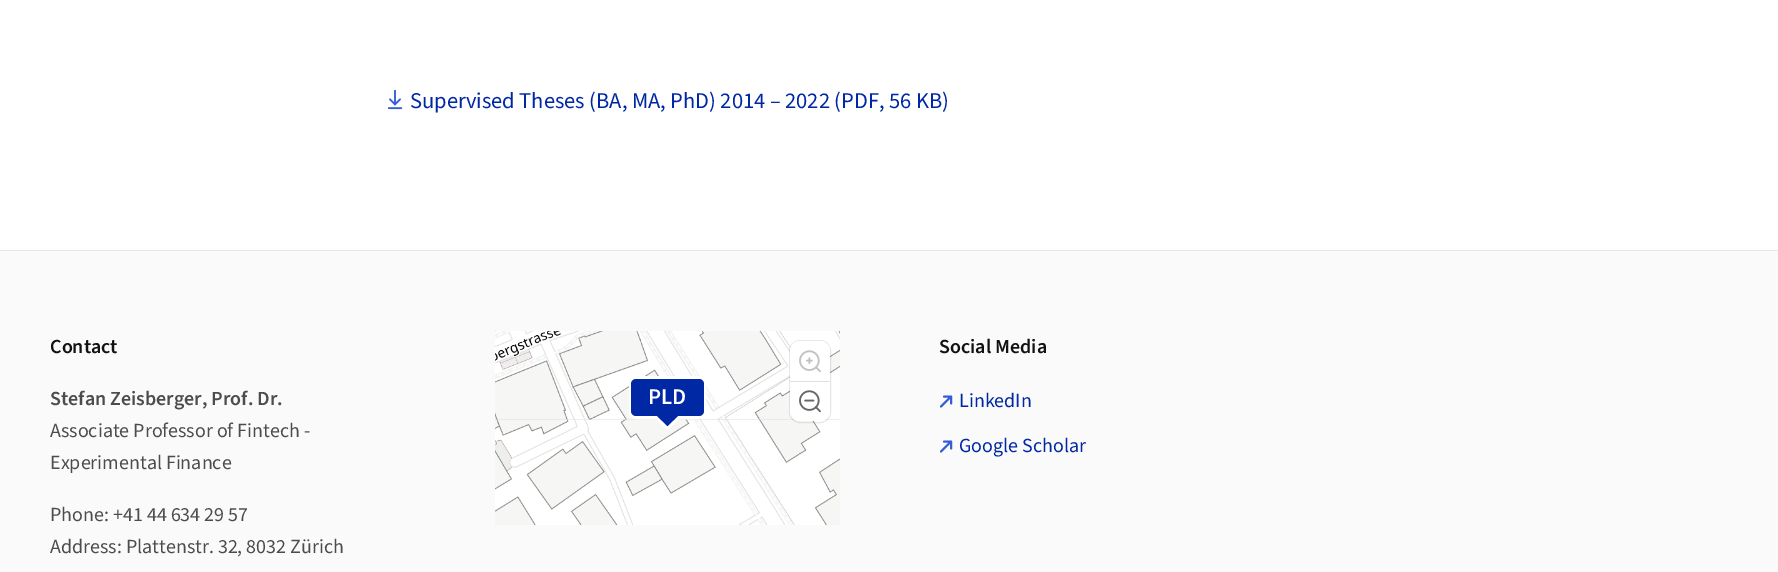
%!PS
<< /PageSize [1778 572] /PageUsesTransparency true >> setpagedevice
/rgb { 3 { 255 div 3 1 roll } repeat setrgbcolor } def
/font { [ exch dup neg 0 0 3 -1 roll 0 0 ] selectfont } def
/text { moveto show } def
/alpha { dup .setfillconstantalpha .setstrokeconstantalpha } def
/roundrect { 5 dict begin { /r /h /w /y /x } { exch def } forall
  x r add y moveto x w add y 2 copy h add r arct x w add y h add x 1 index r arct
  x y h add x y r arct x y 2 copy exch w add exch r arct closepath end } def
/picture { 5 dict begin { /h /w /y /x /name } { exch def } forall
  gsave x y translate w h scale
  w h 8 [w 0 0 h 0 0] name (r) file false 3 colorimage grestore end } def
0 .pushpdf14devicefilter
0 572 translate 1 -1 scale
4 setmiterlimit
255 255 255 rgb
0 0 1778 572 rectfill
(img_01.rgb) 388 90 15 20 picture
250 250 250 rgb
0 251 1778 321 rectfill
230 230 230 rgb
0 250 1778 1 rectfill
221 221 221 rgb
495 419 345 1 rectfill
(img_02.rgb) 495 331 308 89 picture
(img_03.rgb) 802 331 38 89 picture
(img_04.rgb) 495 420 308 105 picture
(img_05.rgb) 802 420 38 105 picture
255 255 255 rgb
3 setlinewidth
630.5 377.5 74 40 6.5 roundrect stroke
0 40 165 rgb
631 379 73 37 5 roundrect fill
255 255 255 rgb
656 419 moveto 23 0 rlineto -11.5 11 rlineto closepath fill
0 40 165 rgb
656 415 moveto 23 0 rlineto -11.5 11 rlineto closepath fill
0.1 alpha
18 18 18 rgb
1 setlinewidth
789.5 340.5 41 82 10.5 roundrect stroke
1 alpha
255 255 255 rgb
790 341 40 80 10 roundrect fill
0.4 alpha
800 341 moveto 20 0 rlineto 5.5 0 10 4.5 10 10 rcurveto 0 30 rlineto -40 0 rlineto 0 -30 rlineto 0 -5.5 4.5 -10 10 -10 rcurveto closepath fill
1 alpha
(img_06.rgb) 799 350 22 23 picture
790 381 moveto 40 0 rlineto 0 30 rlineto 0 5.5 -4.5 10 -10 10 rcurveto -20 0 rlineto -5.5 0 -10 -4.5 -10 -10 rcurveto closepath fill
(img_07.rgb) 799 390 22 23 picture
224 224 224 rgb
790 381 40 1 rectfill
54 93 213 rgb
1.9 setlinewidth
1 setlinecap
1 setlinejoin
941 406.5 moveto 10 -10 rlineto 944 396.5 moveto 7 0 rlineto 0 7 rlineto stroke
941 451.5 moveto 10 -10 rlineto 944 441.5 moveto 7 0 rlineto 0 7 rlineto stroke
/SourceSans3-Regular 22.5 font
0 40 165 rgb
(Supervised Theses \(BA, MA, PhD\) 2014 – 2022 \(PDF, 56 KB\)) 410 108 text
/SourceSans3-SemiBold 20 font
18 18 18 rgb
(Contact) 50 353 text
76 76 76 rgb
(Stefan Zeisberger, Prof. Dr.) 50 405 text
/SourceSans3-Regular 20 font
(Associate Professor of Fintech -) 50 437 text
(Experimental Finance) 50 469 text
(Phone: +41 44 634 29 57) 50 521 text
(Address: Plattenstr. 32, 8032 Zürich) 50 553 text
/SourceSans3-SemiBold 22.5 font
255 255 255 rgb
(PLD) 648 404 text
/SourceSans3-SemiBold 20 font
18 18 18 rgb
(Social Media) 939 353 text
/SourceSans3-Regular 20 font
0 40 165 rgb
(LinkedIn) 959 407 text
(Google Scholar) 959 452 text
.poppdf14devicefilter showpage
